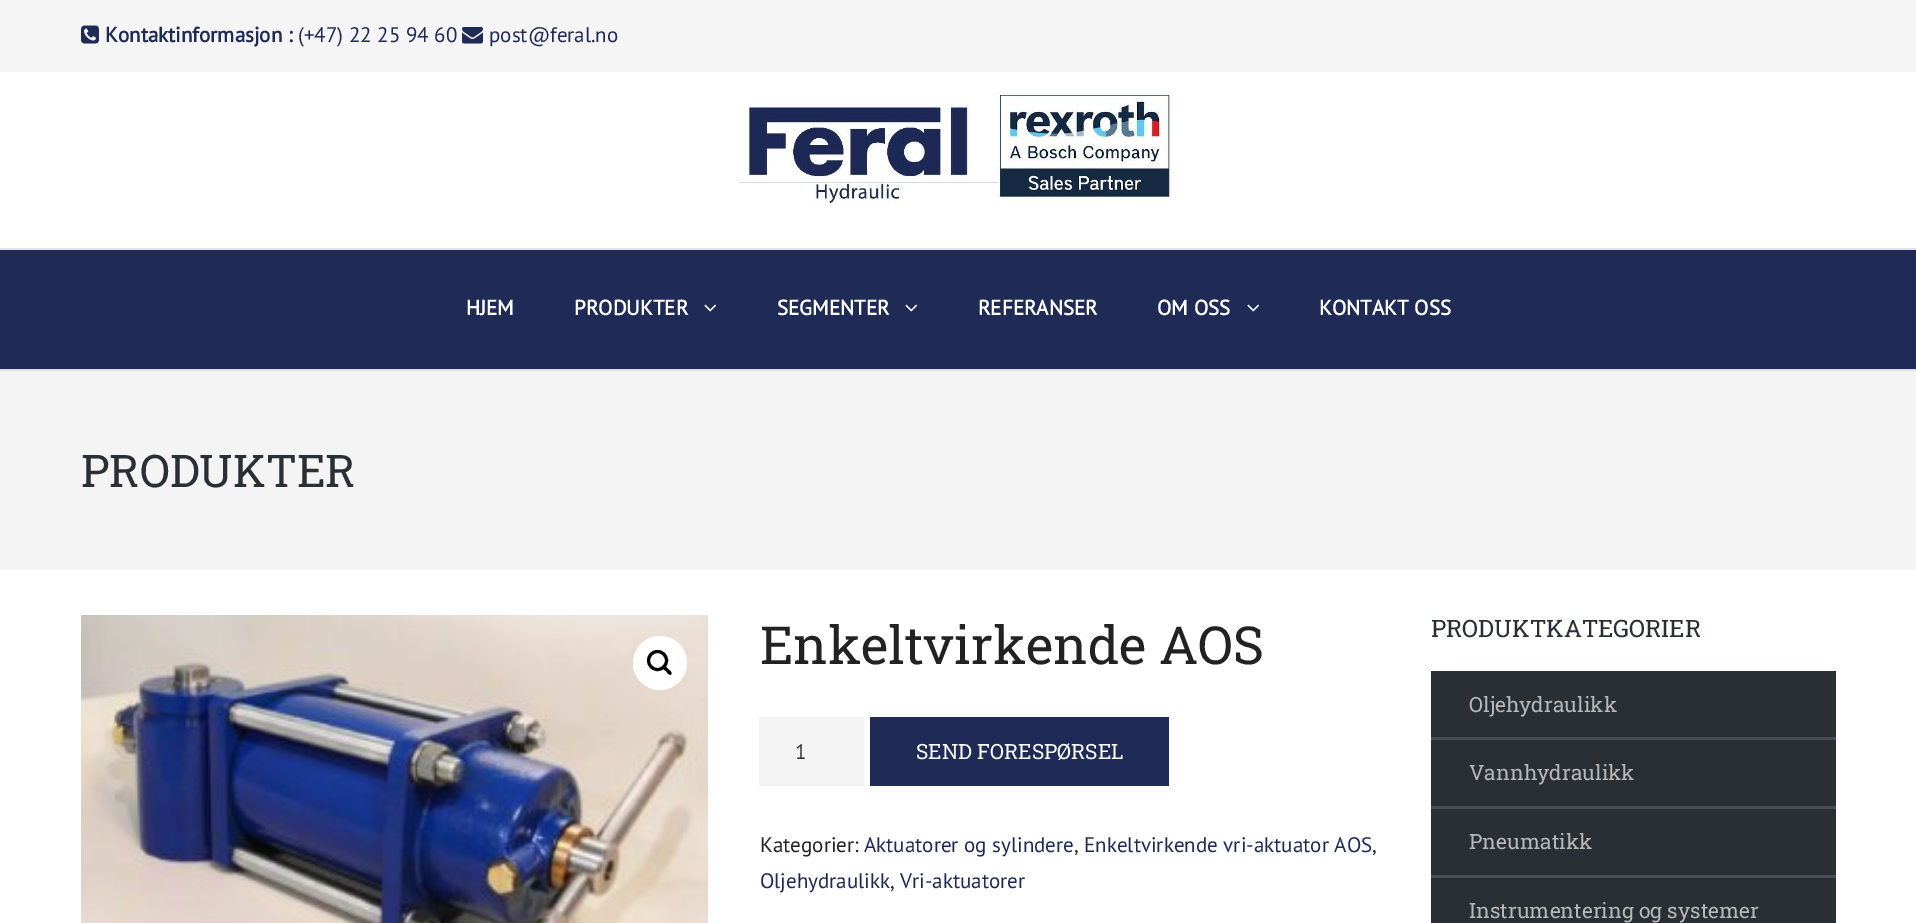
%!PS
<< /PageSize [1916 923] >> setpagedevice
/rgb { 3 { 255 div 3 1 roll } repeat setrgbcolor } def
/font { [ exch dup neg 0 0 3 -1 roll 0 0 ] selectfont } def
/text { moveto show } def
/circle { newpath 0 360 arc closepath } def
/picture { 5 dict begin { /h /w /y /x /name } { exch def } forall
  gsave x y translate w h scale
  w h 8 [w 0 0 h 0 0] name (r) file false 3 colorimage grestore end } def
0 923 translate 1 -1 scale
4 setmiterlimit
255 255 255 rgb
0 0 1916 923 rectfill
245 245 245 rgb
0 0 1916 72 rectfill
(img_01.rgb) 81 25 18 19 picture
(img_02.rgb) 462 27 21 17 picture
(img_03.rgb) 739 91 431 112 picture
31 42 87 rgb
0 250 1916 119 rectfill
226 226 226 rgb
0 248 1916 2 rectfill
0 369 1916 2 rectfill
(img_04.rgb) 704 304 13 8 picture
(img_04.rgb) 905 304 13 8 picture
(img_04.rgb) 1247 304 13 8 picture
244 244 244 rgb
0 371 1916 199 rectfill
(img_05.rgb) 81 615 627 308 picture
255 255 255 rgb
660 663 27 circle fill
0 0 0 rgb
3 setlinewidth
657.5 660.5 9 circle stroke
662.5 666 moveto 2 -2 4.5 2 5.5 3 rcurveto 1 1 5 3.5 3 5.5 rcurveto -1.5 1.5 -4.5 -2.5 -5 -3.5 rcurveto -1 -0.5 -5 -3.5 -3.5 -5 rcurveto closepath fill
243 243 243 rgb
759 717 105 69 rectfill
31 42 87 rgb
870 717 299 69 rectfill
42 47 53 rgb
1431 671 405 252 rectfill
74 78 83 rgb
1431 737 405 3 rectfill
1431 806 405 3 rectfill
1431 875 405 3 rectfill
/PTSans-Bold 21 font
31 42 87 rgb
(Kontaktinformasjon :) 105 42 text
/PTSans-Regular 21 font
(\(+47\) 22 25 94 60) 298 42 text
(post@feral.no) 489 42 text
/PTSans-Bold 21 font
255 255 255 rgb
(HJEM) 466 315 text
(PRODUKTER) 574 315 text
(SEGMENTER) 777 315 text
(REFERANSER) 978 315 text
(OM OSS) 1157 315 text
(KONTAKT OSS) 1319 315 text
/RobotoSlab-Regular 45 font
42 47 53 rgb
(PRODUKTER) 81 487 text
/RobotoSlab-Regular 52.5 font
34 34 34 rgb
(Enkeltvirkende AOS) 760 664 text
/PTSans-Regular 21 font
42 47 53 rgb
(1) 795 759 text
/RobotoSlab-Regular 21 font
255 255 255 rgb
(SEND FORESPØRSEL) 916 759 text
/PTSans-Regular 21 font
34 34 34 rgb
(Kategorier:) 760 852 text
31 42 87 rgb
(Aktuatorer og sylindere) 864 852 text
34 34 34 rgb
(,) 1074 852 text
31 42 87 rgb
(Enkeltvirkende vri-aktuator AOS) 1084 852 text
34 34 34 rgb
(,) 1372 852 text
31 42 87 rgb
(Oljehydraulikk) 760 888 text
34 34 34 rgb
(,) 890 888 text
31 42 87 rgb
(Vri-aktuatorer) 900 888 text
/RobotoSlab-Regular 24 font
42 47 53 rgb
(PRODUKTKATEGORIER) 1431 637 text
/RobotoSlab-Regular 21 font
184 184 184 rgb
(Oljehydraulikk) 1469 712 text
(Vannhydraulikk) 1469 780 text
(Pneumatikk) 1469 849 text
(Instrumentering og systemer) 1469 918 text
showpage
